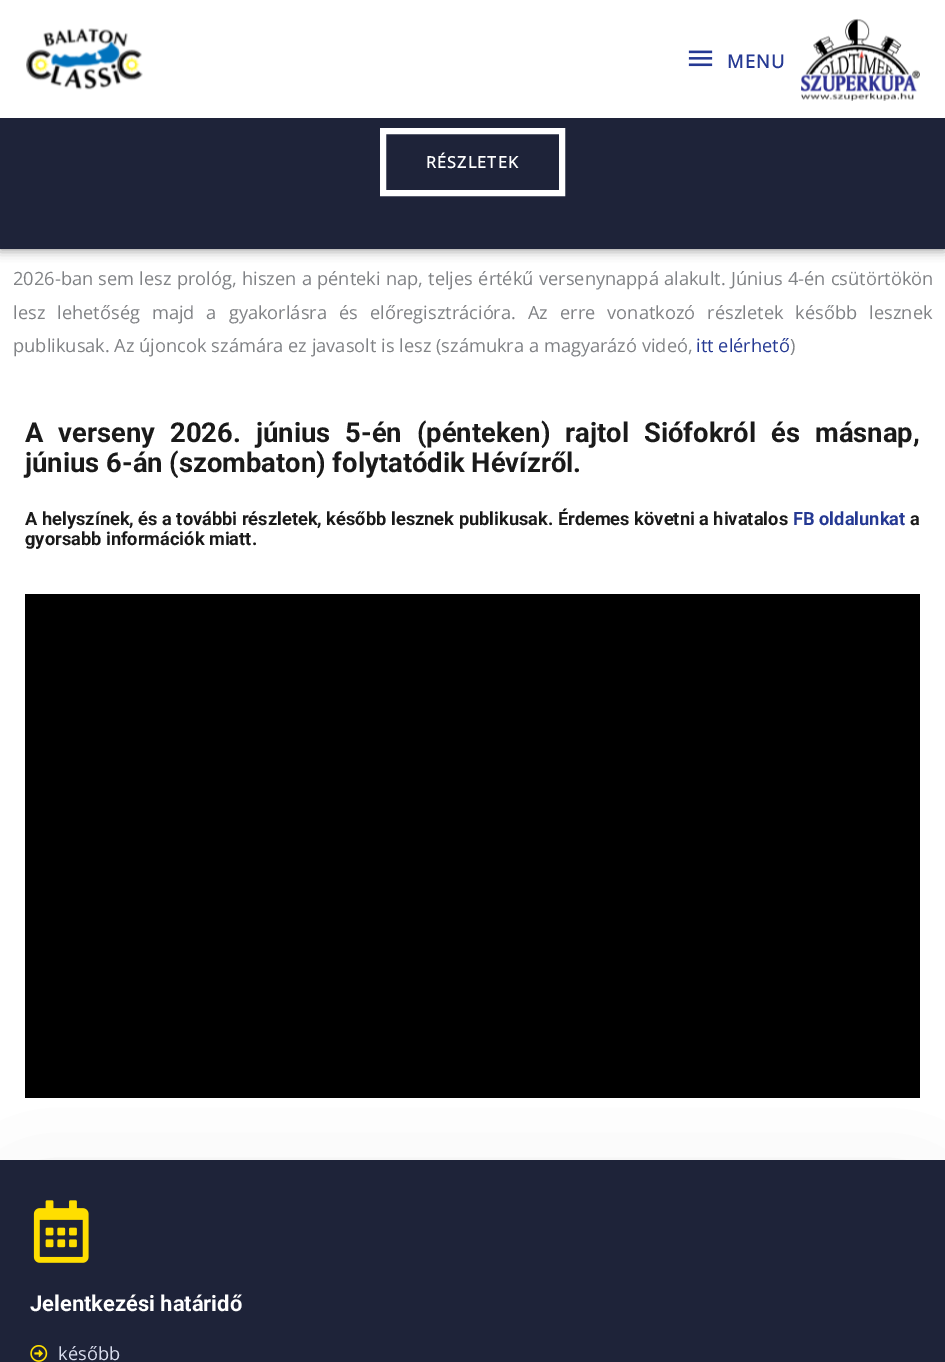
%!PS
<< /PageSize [945 1362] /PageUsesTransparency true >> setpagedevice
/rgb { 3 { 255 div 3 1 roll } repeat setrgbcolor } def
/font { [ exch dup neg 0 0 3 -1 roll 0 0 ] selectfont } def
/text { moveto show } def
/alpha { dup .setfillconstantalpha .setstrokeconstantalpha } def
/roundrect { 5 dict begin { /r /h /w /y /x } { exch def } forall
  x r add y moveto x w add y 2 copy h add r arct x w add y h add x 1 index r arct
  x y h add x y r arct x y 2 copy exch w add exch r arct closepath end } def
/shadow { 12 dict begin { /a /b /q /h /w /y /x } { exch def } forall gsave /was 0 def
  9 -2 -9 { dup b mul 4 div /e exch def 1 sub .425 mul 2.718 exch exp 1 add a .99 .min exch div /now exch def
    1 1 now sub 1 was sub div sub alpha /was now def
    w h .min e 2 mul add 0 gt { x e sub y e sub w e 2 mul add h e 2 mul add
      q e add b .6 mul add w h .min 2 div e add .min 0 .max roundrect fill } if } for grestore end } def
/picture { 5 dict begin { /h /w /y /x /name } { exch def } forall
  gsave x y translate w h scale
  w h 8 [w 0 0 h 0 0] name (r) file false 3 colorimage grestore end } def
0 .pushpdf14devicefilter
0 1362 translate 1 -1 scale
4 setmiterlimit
255 255 255 rgb
0 0 945 1362 rectfill
0 0 0 rgb
0 -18 945 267 0 6 0.5 shadow
255 255 255 rgb
0 0 945 118 rectfill
(img_01.rgb) 26 28 117 62 picture
(img_02.rgb) 688 50 25 17 picture
(img_03.rgb) 801 18 119 83 picture
30 35 57 rgb
0 118 945 131 rectfill
255 255 255 rgb
6 setlinewidth
383 131 179 62 rectstroke
0 0 0 rgb
25 594 895 504 rectfill
30 1220 885 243 0 50 0.24 shadow
30 35 57 rgb
0 1160 945 202 rectfill
(img_04.rgb) 33 1200 56 63 picture
(img_05.rgb) 30 1345 18 17 picture
/OpenSans-Bold 18.25 font
37 57 147 rgb
727 68 moveto 1.25 0 (MENU) ashow
/OpenSans-Bold 16 font
255 255 255 rgb
426 168 moveto 1.25 0 (RÉSZLETEK) ashow
/OpenSans-Regular 18.25 font
128 130 133 rgb
13 285 moveto 0.5 0 32 (2026-ban sem lesz prológ, hiszen a pénteki nap, teljes értékű versenynappá alakult. Június 4-én csütörtökön) widthshow
13 319 moveto 7.25 0 32 (lesz lehetőség majd a gyakorlásra és előregisztrációra. Az erre vonatkozó részletek később lesznek) widthshow
(publikusak. Az újoncok számára ez javasolt is lesz \(számukra a magyarázó videó,) 13 352 text
37 57 147 rgb
(itt elérhető) 696 352 text
128 130 133 rgb
(\)) 790 352 text
/Roboto-Bold 27.35 font
26 26 26 rgb
25 442 moveto 8.25 0 32 (A verseny 2026. június 5-én \(pénteken\) rajtol Siófokról és másnap,) widthshow
(június 6-án \(szombaton\) folytatódik Hévízről.) 25 472 text
/Roboto-Bold 18.25 font
(A helyszínek, és a további részletek, később lesznek publikusak. Érdemes követni a hivatalos) 25 525 text
37 57 147 rgb
(FB oldalunkat) 793 525 text
26 26 26 rgb
(a) 910 525 text
(gyorsabb információk miatt.) 25 545 text
/Roboto-Bold 21.9 font
255 255 255 rgb
(Jelentkezési határidő) 30 1311 text
/OpenSans-Regular 18.25 font
218 222 239 rgb
(később) 58 1360 text
.poppdf14devicefilter showpage
